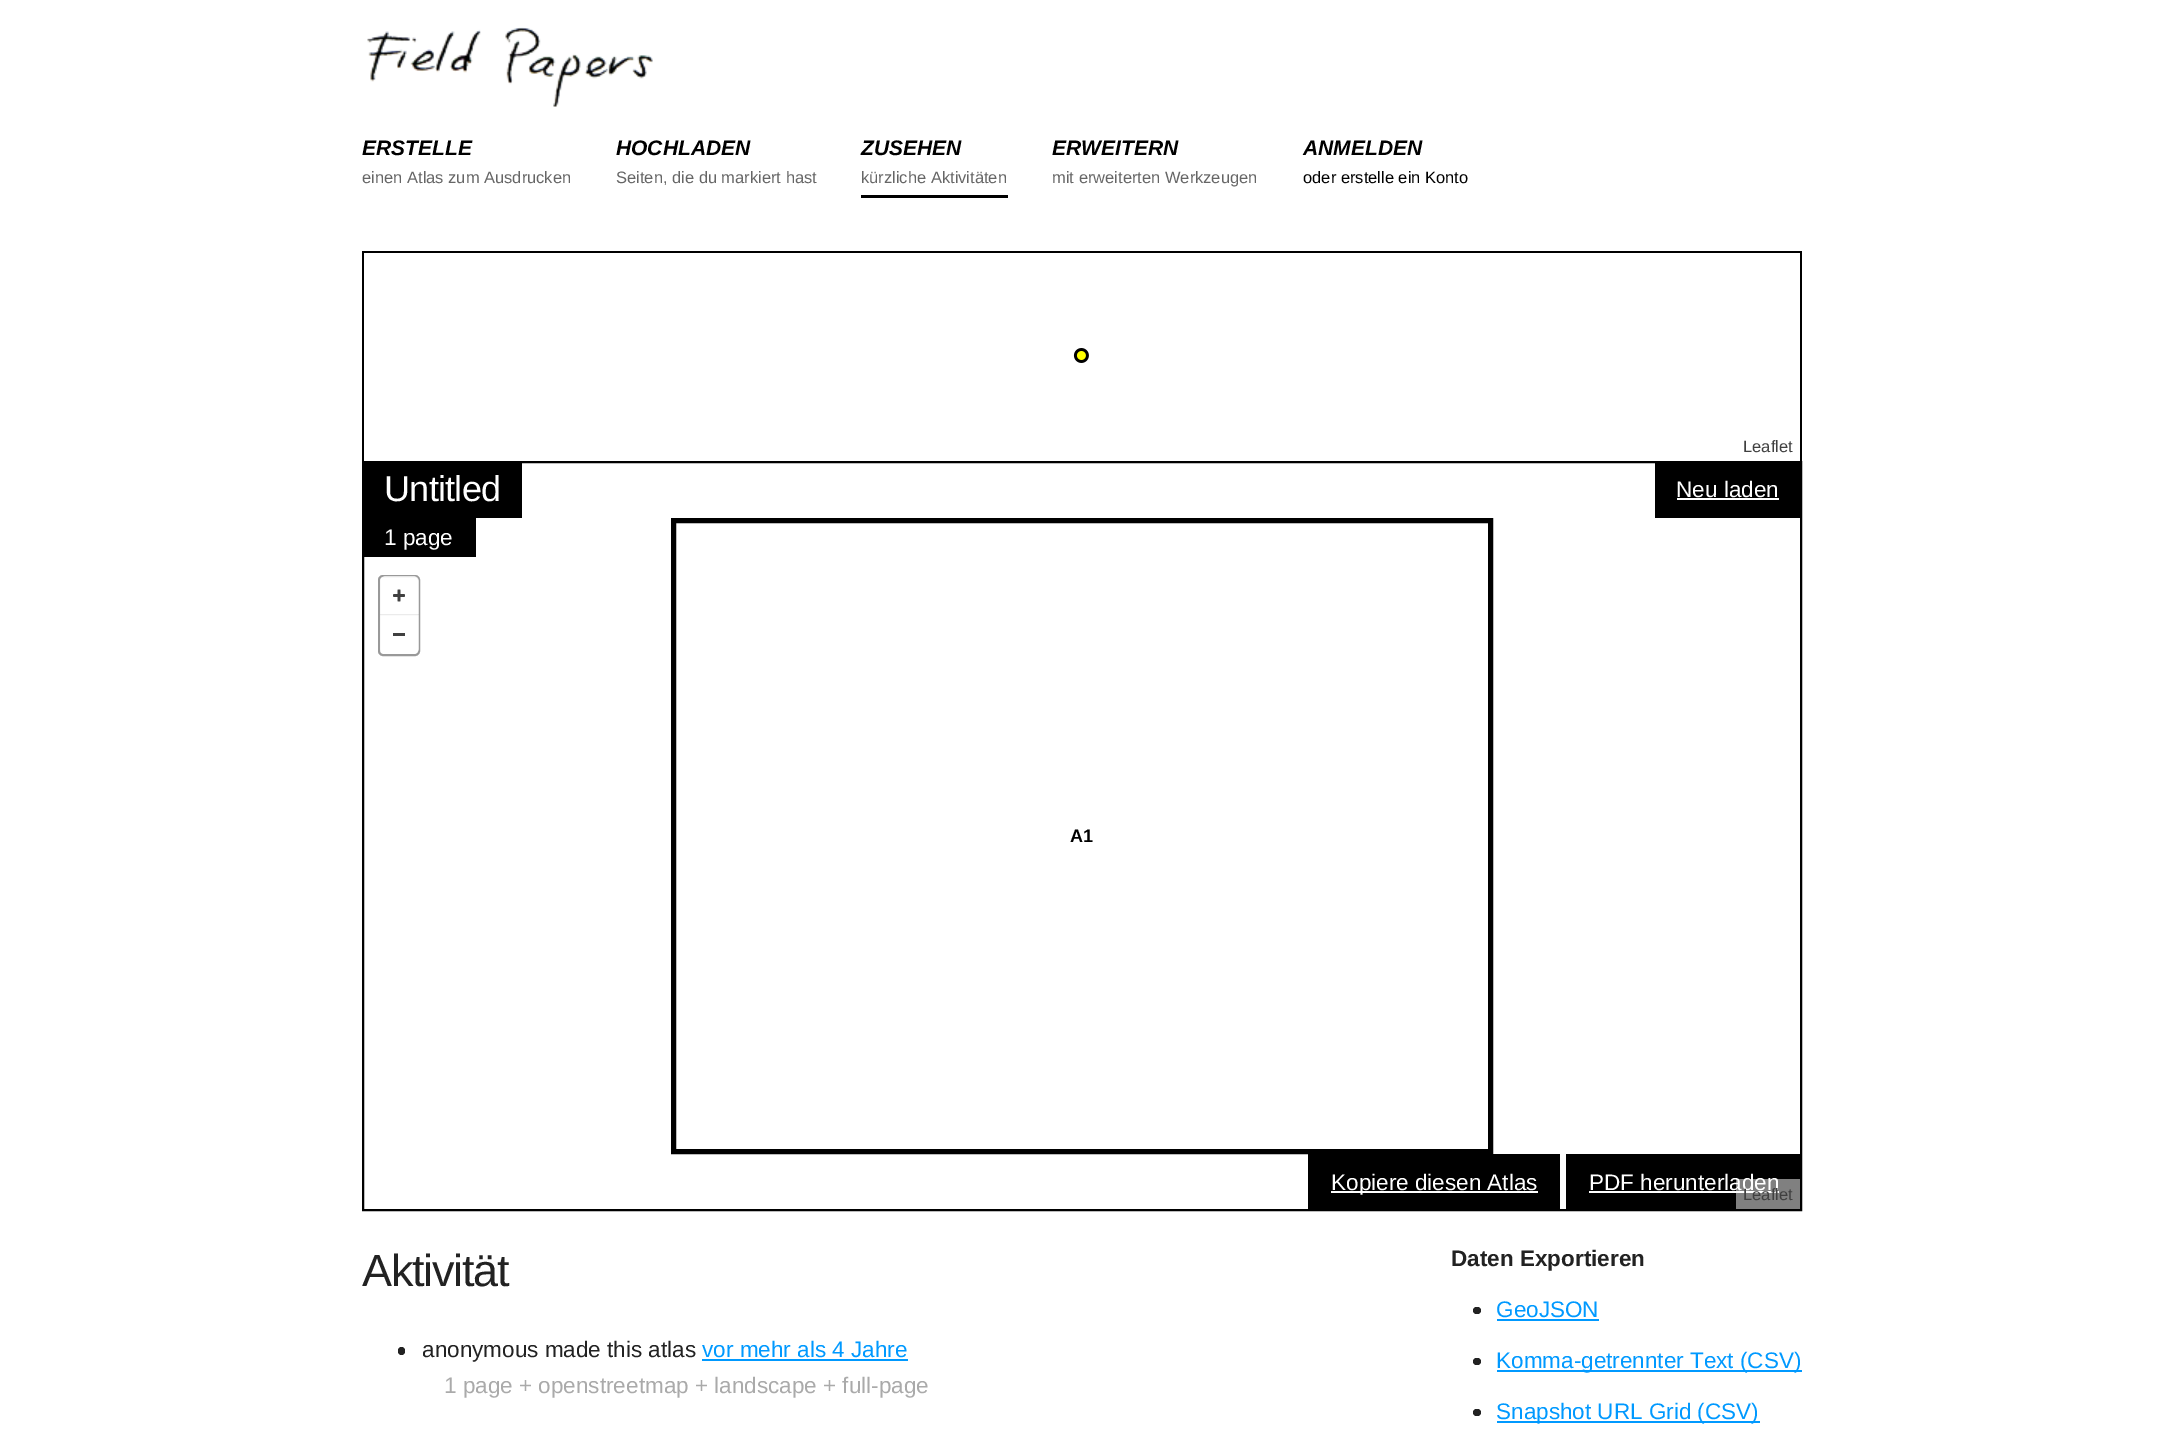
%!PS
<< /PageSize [2163 1442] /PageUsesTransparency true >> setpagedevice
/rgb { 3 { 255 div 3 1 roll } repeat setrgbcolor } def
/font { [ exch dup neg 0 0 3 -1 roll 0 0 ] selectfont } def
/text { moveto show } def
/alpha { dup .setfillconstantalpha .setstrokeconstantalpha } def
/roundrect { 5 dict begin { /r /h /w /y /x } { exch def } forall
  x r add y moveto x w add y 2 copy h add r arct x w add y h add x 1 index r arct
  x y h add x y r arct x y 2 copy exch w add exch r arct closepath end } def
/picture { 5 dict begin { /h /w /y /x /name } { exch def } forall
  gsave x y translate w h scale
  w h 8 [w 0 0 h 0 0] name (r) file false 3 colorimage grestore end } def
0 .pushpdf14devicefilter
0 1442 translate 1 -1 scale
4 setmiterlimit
255 255 255 rgb
0 0 2163 1442 rectfill
(img_01.rgb) 367 27 286 80 picture
0 0 0 rgb
861 195 147 3 rectfill
362 251 1440 2 rectfill
1800 251 2 210 rectfill
362 251 2 210 rectfill
(img_02.rgb) 1073 348 16 15 picture
2 setlinewidth
363 462 1438 748 rectstroke
364 463 158 55 rectfill
364 518 112 39 rectfill
1655 463 145 55 rectfill
255 255 255 rgb
1677 498 102 2 rectfill
153 153 153 rgb
379 576 40 79 4 roundrect stroke
0.75 alpha
255 255 255 rgb
386 576 moveto 27 0 rlineto 3.5 0 6 2.5 6 6 rcurveto 0 33 rlineto -39 0 rlineto 0 -33 rlineto 0 -3.5 2.5 -6 6 -6 rcurveto closepath fill
1 alpha
(img_03.rgb) 393 589 12 13 picture
0.08 alpha
0 0 0 rgb
380 614 39 2 rectfill
0.75 alpha
255 255 255 rgb
380 615 moveto 39 0 rlineto 0 33 rlineto 0 3.5 -2.5 6 -6 6 rcurveto -27 0 rlineto -3.5 0 -6 -2.5 -6 -6 rcurveto closepath fill
1 alpha
64 64 64 rgb
393 633 12 3 rectfill
0 0 0 rgb
5 setlinewidth
673.5 520.5 817 631 rectstroke
1308 1154 252 55 rectfill
255 255 255 rgb
1331 1191 207 2 rectfill
0 0 0 rgb
1566 1154 234 55 rectfill
255 255 255 rgb
1589 1191 190 2 rectfill
34 34 34 rgb
398 1347 7 8 3.5 roundrect fill
0 153 255 rgb
702 1359 206 2 rectfill
34 34 34 rgb
1473 1307 8 7 3.5 roundrect fill
0 153 255 rgb
1497 1319 102 2 rectfill
34 34 34 rgb
1473 1358 8 7 3.5 roundrect fill
0 153 255 rgb
1497 1370 305 2 rectfill
34 34 34 rgb
1473 1409 8 7 3.5 roundrect fill
0 153 255 rgb
1497 1421 263 2 rectfill
/LiberationSans-BoldItalic 21 font
0 0 0 rgb
(ERSTELLE) 362 155 text
/LiberationSans-Regular 16.5 font
102 102 102 rgb
(einen Atlas zum Ausdrucken) 362 183 text
/LiberationSans-BoldItalic 21 font
0 0 0 rgb
(HOCHLADEN) 616 155 text
/LiberationSans-Regular 16.5 font
102 102 102 rgb
(Seiten, die du markiert hast) 616 183 text
/LiberationSans-BoldItalic 21 font
0 0 0 rgb
(ZUSEHEN) 861 155 text
/LiberationSans-Regular 16.5 font
102 102 102 rgb
(kürzliche Aktivitäten) 861 183 text
/LiberationSans-BoldItalic 21 font
0 0 0 rgb
(ERWEITERN) 1052 155 text
/LiberationSans-Regular 16.5 font
102 102 102 rgb
(mit erweiterten Werkzeugen) 1052 183 text
/LiberationSans-BoldItalic 21 font
0 0 0 rgb
(ANMELDEN) 1303 155 text
/LiberationSans-Regular 16.5 font
(oder erstelle ein Konto) 1303 183 text
64 64 64 rgb
(Leaflet) 1743 452 text
/LiberationSans-Regular 36 font
255 255 255 rgb
384 501 moveto -0.75 0 (Untitled) ashow
/LiberationSans-Regular 22.5 font
(1 page) 384 545 text
(Neu laden) 1676 497 text
/LiberationSans-Bold 18 font
0 0 0 rgb
(A1) 1070 842 text
/LiberationSans-Regular 22.5 font
255 255 255 rgb
(Kopiere diesen Atlas) 1331 1190 text
(PDF herunterladen) 1589 1190 text
0.5 alpha
1736 1179 64 30 rectfill
/LiberationSans-Regular 16.5 font
1 alpha
64 64 64 rgb
(Leaflet) 1743 1200 text
/LiberationSans-Regular 45 font
34 34 34 rgb
362 1286 moveto -1.25 0 (Aktivität) ashow
/LiberationSans-Regular 22.5 font
(anonymous made this atlas) 422 1357 text
0 153 255 rgb
(vor mehr als 4 Jahre) 702 1357 text
170 170 170 rgb
(1 page + openstreetmap + landscape + full-page) 444 1393 text
/LiberationSans-Bold 22.5 font
34 34 34 rgb
(Daten Exportieren) 1451 1266 text
/LiberationSans-Regular 22.5 font
0 153 255 rgb
(GeoJSON) 1496 1317 text
(Komma-getrennter Text \(CSV\)) 1496 1368 text
(Snapshot URL Grid \(CSV\)) 1496 1419 text
.poppdf14devicefilter showpage
